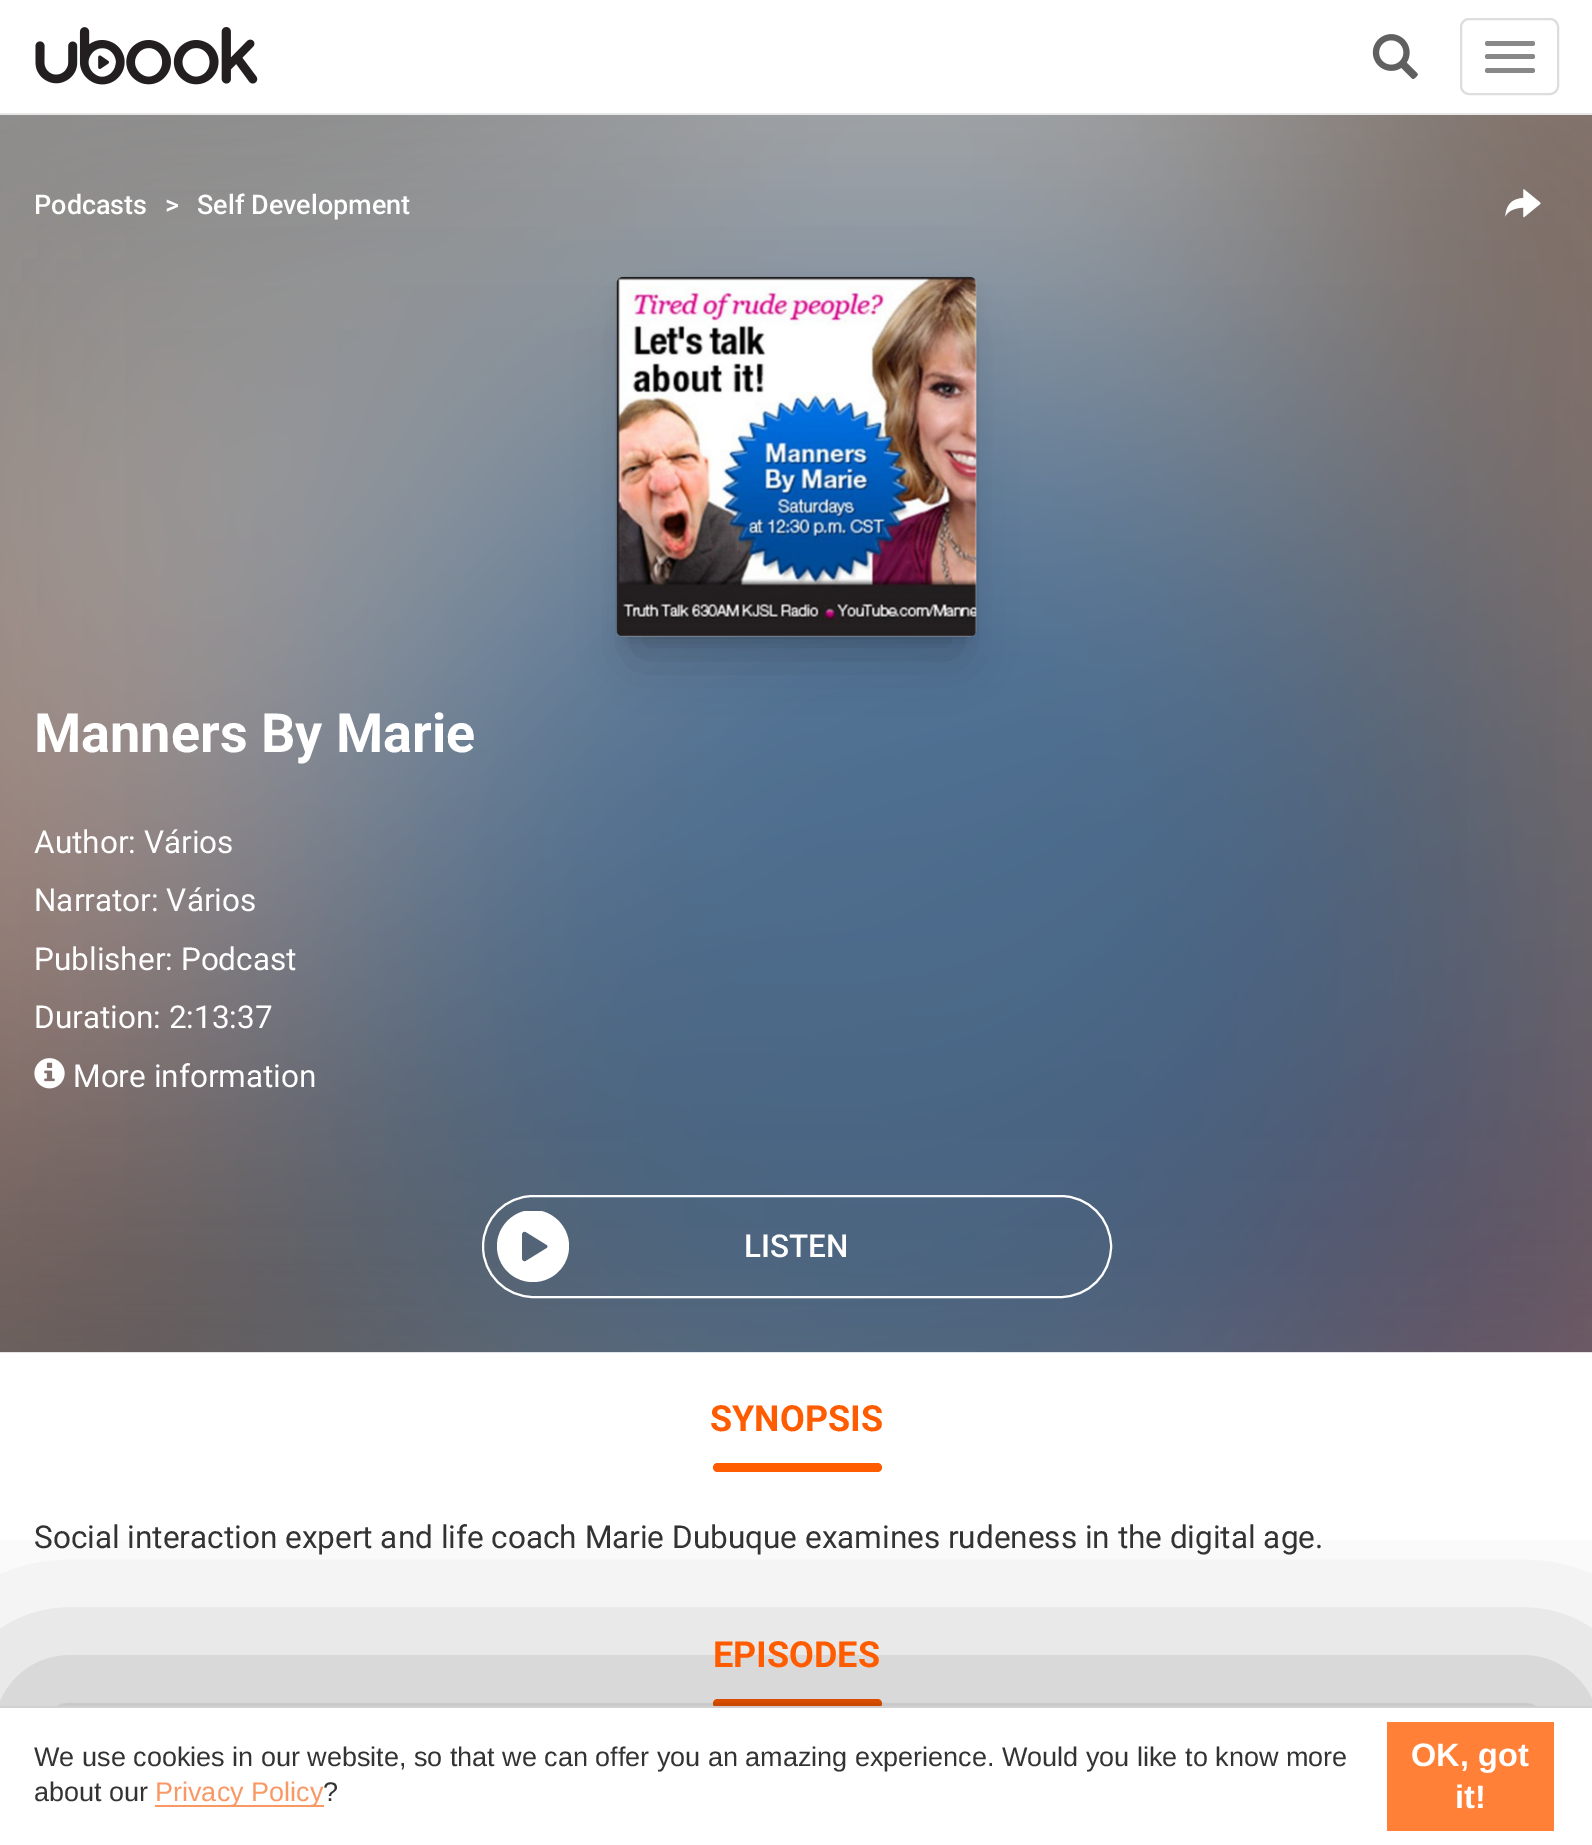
%!PS
<< /PageSize [1592 1845] /PageUsesTransparency true >> setpagedevice
/rgb { 3 { 255 div 3 1 roll } repeat setrgbcolor } def
/font { [ exch dup neg 0 0 3 -1 roll 0 0 ] selectfont } def
/text { moveto show } def
/alpha { dup .setfillconstantalpha .setstrokeconstantalpha } def
/roundrect { 5 dict begin { /r /h /w /y /x } { exch def } forall
  x r add y moveto x w add y 2 copy h add r arct x w add y h add x 1 index r arct
  x y h add x y r arct x y 2 copy exch w add exch r arct closepath end } def
/shadow { 12 dict begin { /a /b /q /h /w /y /x } { exch def } forall gsave /was 0 def
  9 -2 -9 { dup b mul 4 div /e exch def 1 sub .425 mul 2.718 exch exp 1 add a .99 .min exch div /now exch def
    1 1 now sub 1 was sub div sub alpha /was now def
    w h .min e 2 mul add 0 gt { x e sub y e sub w e 2 mul add h e 2 mul add
      q e add b .6 mul add w h .min 2 div e add .min 0 .max roundrect fill } if } for grestore end } def
/picture { 5 dict begin { /h /w /y /x /name } { exch def } forall
  gsave x y translate w h scale
  w h 8 [w 0 0 h 0 0] name (r) file false 3 colorimage grestore end } def
0 .pushpdf14devicefilter
0 1845 translate 1 -1 scale
4 setmiterlimit
255 255 255 rgb
0 0 1592 1845 rectfill
171 171 171 rgb
0 115 1592 1237 rectfill
231 231 231 rgb
0 113 1592 2 rectfill
(img_01.rgb) 35 27 223 58 picture
(img_02.rgb) 1372 34 46 45 picture
221 221 221 rgb
2 setlinewidth
1461 19 97 75 8 roundrect stroke
136 136 136 rgb
1485 41 50 5 2.5 roundrect fill
1485 54 50 5 2.5 roundrect fill
1485 68 50 5 2.5 roundrect fill
(img_03.rgb) 0 115 1592 1238 picture
(img_04.rgb) 1505 189 36 29 picture
0 0 0 rgb
626 295 342 342 0 9 0.2 shadow
635 331 324 324 0 27 0.2 shadow
(img_05.rgb) 616 276 361 361 picture
(img_06.rgb) 34 1058 31 31 picture
255 255 255 rgb
483 1196 628 101 50.5 roundrect stroke
gsave
497 1211 72 72 rectclip
533 1210 moveto -20 0 -36 17 -36 36 rcurveto 0 20 16 36 36 36 rcurveto 20 0 36 -16 36 -36 rcurveto 0 -19 -16 -36 -36 -36 rcurveto closepath 547 1248 moveto -21 13 rlineto -2 1 -4 0 -4 -2 rcurveto 0 -25 rlineto 0 -2 2 -3 4 -2 rcurveto 21 13 rlineto 1 1 1 2 0 3 rcurveto closepath fill
grestore
255 91 0 rgb
713 1463 169 9 4.5 roundrect fill
713 1699 169 9 4.5 roundrect fill
gsave
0 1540 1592 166 rectclip
0 0 0 rgb
18 1679 1557 103 0 95.5 0.3 shadow
grestore
0.96 alpha
255 255 255 rgb
713 1706 169 2 rectfill
0.18 alpha
0 0 0 rgb
0 1706 1592 2 rectfill
1 alpha
248 153 101 rgb
155 1805 169 2 rectfill
255 128 54 rgb
1387 1722 167 109 rectfill
/Roboto-Medium 27 font
255 255 255 rgb
(Podcasts) 34 214 text
(>) 165 214 text
(Self Development) 197 214 text
/Roboto-Bold 54 font
(Manners By Marie) 34 752 text
/Roboto-Regular 31.5 font
(Author: Vários) 34 853 text
(Narrator: Vários) 34 911 text
(Publisher: Podcast) 34 970 text
(Duration: 2:13:37) 34 1028 text
(More information) 73 1087 text
/Roboto-Medium 31.5 font
(LISTEN) 744 1257 text
/Roboto-Bold 36 font
255 91 0 rgb
(SYNOPSIS) 710 1431 text
/Roboto-Regular 31.5 font
51 51 51 rgb
(Social interaction expert and life coach Marie Dubuque examines rudeness in the digital age.) 34 1548 text
/Roboto-Bold 36 font
255 91 0 rgb
(EPISODES) 713 1667 text
/LiberationSans-Regular 27 font
51 51 51 rgb
(We use cookies in our website, so that we can offer you an amazing experience. Would you like to know more) 34 1766 text
(about our) 34 1801 text
248 153 101 rgb
(Privacy Policy) 155 1801 text
51 51 51 rgb
(?) 323 1801 text
/LiberationSans-Bold 32.5 font
255 255 255 rgb
(OK, got) 1411 1766 text
(it!) 1455 1808 text
.poppdf14devicefilter showpage
